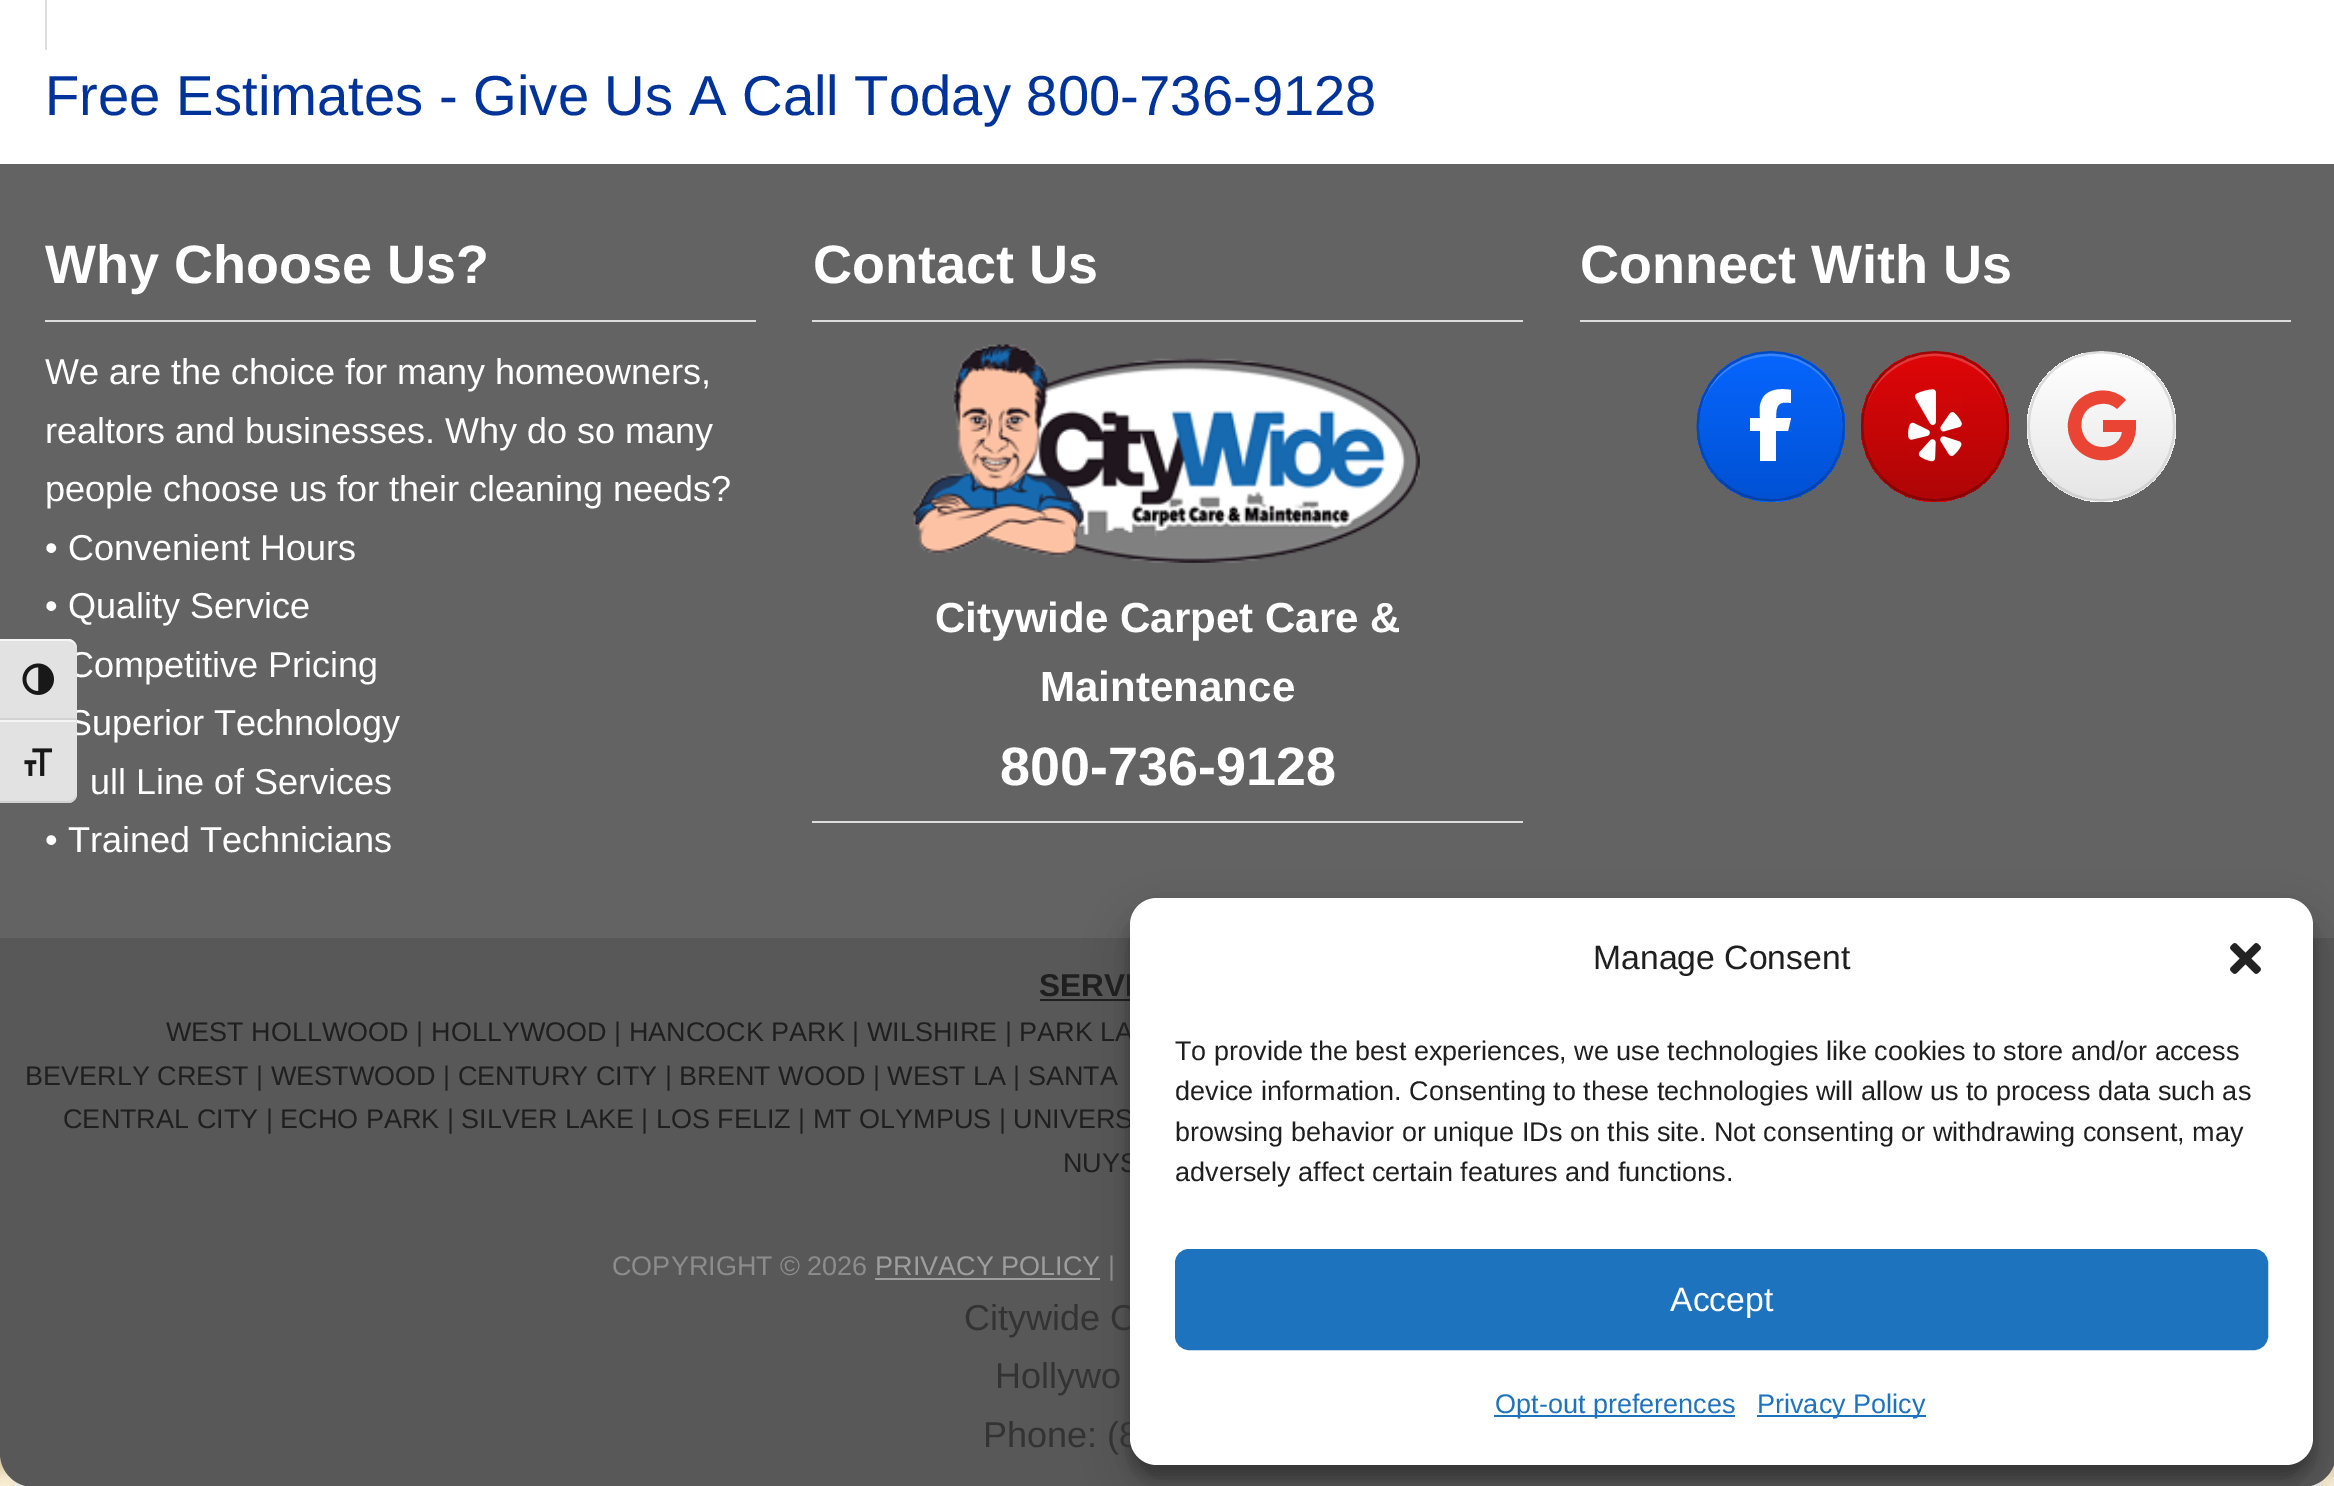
%!PS
<< /PageSize [2334 1486] /PageUsesTransparency true >> setpagedevice
/rgb { 3 { 255 div 3 1 roll } repeat setrgbcolor } def
/font { [ exch dup neg 0 0 3 -1 roll 0 0 ] selectfont } def
/text { moveto show } def
/alpha { dup .setfillconstantalpha .setstrokeconstantalpha } def
/roundrect { 5 dict begin { /r /h /w /y /x } { exch def } forall
  x r add y moveto x w add y 2 copy h add r arct x w add y h add x 1 index r arct
  x y h add x y r arct x y 2 copy exch w add exch r arct closepath end } def
/shadow { 12 dict begin { /a /b /q /h /w /y /x } { exch def } forall gsave /was 0 def
  9 -2 -9 { dup b mul 4 div /e exch def 1 sub .425 mul 2.718 exch exp 1 add a .99 .min exch div /now exch def
    1 1 now sub 1 was sub div sub alpha /was now def
    w h .min e 2 mul add 0 gt { x e sub y e sub w e 2 mul add h e 2 mul add
      q e add b .6 mul add w h .min 2 div e add .min 0 .max roundrect fill } if } for grestore end } def
/picture { 5 dict begin { /h /w /y /x /name } { exch def } forall
  gsave x y translate w h scale
  w h 8 [w 0 0 h 0 0] name (r) file false 3 colorimage grestore end } def
0 .pushpdf14devicefilter
0 1486 translate 1 -1 scale
4 setmiterlimit
255 255 255 rgb
0 0 2334 1486 rectfill
(img_01.rgb) 0 1453 2334 33 picture
221 221 221 rgb
45 0 2 50 rectfill
99 99 99 rgb
0 164 2334 774 rectfill
221 221 221 rgb
45 320 711 2 rectfill
812 320 711 2 rectfill
(img_02.rgb) 913 344 507 219 picture
812 821 711 2 rectfill
1580 320 711 2 rectfill
gsave
1697 351 148 151 74 roundrect clip newpath
gsave 1697 353 moveto 148 0 rlineto 0 147 rlineto -148 0 rlineto closepath clip newpath
<< /ShadingType 2 /ColorSpace /DeviceRGB /Coords [1699 500 1699 353] /Extend [true true] /Function << /FunctionType 2 /Domain [0 1] /C0 [0 0.318 0.827] /C1 [0.027 0.4 1] /N 1 >> >> shfill grestore
gsave 1754 500 moveto 34 0 rlineto 0 2 rlineto -34 0 rlineto closepath clip newpath
<< /ShadingType 2 /ColorSpace /DeviceRGB /Coords [1699 646 1699 500] /Extend [true true] /Function << /FunctionType 2 /Domain [0 1] /C0 [0 0.318 0.827] /C1 [0.027 0.4 1] /N 1 >> >> shfill grestore
grestore
0.2 alpha
255 255 255 rgb
1771 356 moveto 53 0 87 55 65 104 rcurveto 23 -48 -10 -106 -65 -107 rcurveto -16 0 -33 6 -45 16 rcurveto -13 10 -22 24 -25 40 rcurveto 8 -32 38 -53 70 -53 rcurveto closepath fill
1 alpha
0 75 196 rgb
2.2 setlinewidth
1719 373.5 moveto 28.5 -28.5 75 -28.5 103.5 0 rcurveto stroke
0 71 185 rgb
1822.5 373.5 moveto 28.5 28.5 28.5 77 0 105.5 rcurveto stroke
0 65 170 rgb
1822.5 479 moveto -28.5 28.5 -75 28.5 -103.5 0 rcurveto stroke
0 71 185 rgb
1719 479 moveto -28.5 -28.5 -28.5 -77 0 -105.5 rcurveto stroke
255 255 255 rgb
1760 431 moveto 0 30 rlineto 0 -30 rlineto 0 30 rlineto 16 0 rlineto 0 -30 rlineto 12 0 rlineto 3 -13 rlineto -15 0 rlineto 0 -13 2 -17 15 -15 rcurveto 0 -13 rlineto -11 -2 -26 -1 -30 12 rcurveto -2 5 -1 10 -1 16 rcurveto -10 0 rlineto 0 13 rlineto closepath fill
gsave
1861 351 148 151 74 roundrect clip newpath
gsave 1861 353 moveto 148 0 rlineto 0 147 rlineto -148 0 rlineto closepath clip newpath
<< /ShadingType 2 /ColorSpace /DeviceRGB /Coords [1863 500 1863 353] /Extend [true true] /Function << /FunctionType 2 /Domain [0 1] /C0 [0.682 0.02 0.024] /C1 [0.878 0.024 0.031] /N 1 >> >> shfill grestore
gsave 1918 500 moveto 34 0 rlineto 0 2 rlineto -34 0 rlineto closepath clip newpath
<< /ShadingType 2 /ColorSpace /DeviceRGB /Coords [1863 646 1863 500] /Extend [true true] /Function << /FunctionType 2 /Domain [0 1] /C0 [0.682 0.02 0.024] /C1 [0.878 0.024 0.031] /N 1 >> >> shfill grestore
grestore
0.2 alpha
1935 356 moveto 36 0 68 28 72 64 rcurveto -3 -38 -34 -67 -72 -67 rcurveto -38 0 -69 29 -72 67 rcurveto 4 -36 36 -64 72 -64 rcurveto closepath fill
1 alpha
159 4 6 rgb
1883.5 373.5 moveto 28 -28.5 75 -28.5 103 0 rcurveto stroke
149 4 5 rgb
1986.5 373.5 moveto 28.5 28.5 28.5 77 0 105.5 rcurveto stroke
135 4 5 rgb
1986.5 479 moveto -28 28.5 -75 28.5 -103 0 rcurveto stroke
149 4 5 rgb
1883.5 479 moveto -28.5 -28.5 -28.5 -77 0 -105.5 rcurveto stroke
(img_03.rgb) 1908 389 54 73 picture
gsave
2027 351 149 151 74.5 roundrect clip newpath
gsave 2027 353 moveto 149 0 rlineto 0 147 rlineto -149 0 rlineto closepath clip newpath
<< /ShadingType 2 /ColorSpace /DeviceRGB /Coords [2030 500 2030 353] /Extend [true true] /Function << /FunctionType 2 /Domain [0 1] /C0 [0.902 0.902 0.902] /C1 [1 1 1] /N 1 >> >> shfill grestore
gsave 2084 500 moveto 35 0 rlineto 0 2 rlineto -35 0 rlineto closepath clip newpath
<< /ShadingType 2 /ColorSpace /DeviceRGB /Coords [2030 646 2030 500] /Extend [true true] /Function << /FunctionType 2 /Domain [0 1] /C0 [0.902 0.902 0.902] /C1 [1 1 1] /N 1 >> >> shfill grestore
grestore
0.2 alpha
255 255 255 rgb
2102 356 moveto 51 0 79 48 70 89 rcurveto 12 -51 -30 -101 -84 -91 rcurveto -13 3 -25 9 -35 18 rcurveto -13 13 -22 30 -23 48 rcurveto 5 -34 31 -64 72 -64 rcurveto closepath fill
1 alpha
222 222 222 rgb
2050 373.5 moveto 28 -28.5 75 -28.5 103 0 rcurveto stroke
217 217 217 rgb
2153 373.5 moveto 28.5 28.5 28.5 77 0 105.5 rcurveto stroke
209 209 209 rgb
2153 479 moveto -28 28.5 -75 28.5 -103 0 rcurveto stroke
217 217 217 rgb
2050 479 moveto -28.5 -28.5 -28.5 -77 0 -105.5 rcurveto stroke
234 68 53 rgb
2136 426 moveto -1 50 -71 42 -68 -3 rcurveto 1 -9 5 -18 12 -24 rcurveto 13 -11 33 -12 46 1 rcurveto -9 9 rlineto -5 -5 -11 -6 -17 -5 rcurveto -28 3 -23 45 4 43 rcurveto 9 0 17 -6 18 -15 rcurveto -19 0 rlineto 0 -12 rlineto 33 0 rlineto closepath fill
88 88 88 rgb
0 938 moveto 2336 0 rlineto 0 515 rlineto 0 19 -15 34 -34 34 rcurveto -2268 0 rlineto -19 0 -34 -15 -34 -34 rcurveto closepath fill
31 31 31 rgb
1040 999 90 2 rectfill
158 158 158 rgb
875 1278 225 2 rectfill
0 0 0 rgb
1130 911 1183 567 27 7 0.23 shadow
1130 920 1183 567 27 22.5 0.19 shadow
/LiberationSans-Regular 56.25 font
0 51 153 rgb
(Free Estimates - Give Us A Call Today 800-736-9128) 45 115 text
/LiberationSans-Bold 54 font
255 255 255 rgb
(Why Choose Us?) 45 283 text
/LiberationSans-Regular 36 font
(We are the choice for many homeowners,) 45 384 text
(realtors and businesses. Why do so many) 45 443 text
(people choose us for their cleaning needs?) 45 501 text
(• Convenient Hours) 45 560 text
(• Quality Service) 45 618 text
(Competitive Pricing) 68 677 text
(Superior Technology) 68 735 text
(ull Line of Services) 90 794 text
(• Trained Technicians) 45 852 text
/LiberationSans-Bold 54 font
(Contact Us) 813 283 text
/LiberationSans-Bold 42.1 font
(Citywide Carpet Care &) 935 632 text
(Maintenance) 1040 701 text
/LiberationSans-Bold 54 font
(800-736-9128) 1000 785 text
(Connect With Us) 1580 283 text
/LiberationSans-Bold 31.5 font
31 31 31 rgb
(SERVI) 1039 996 text
/LiberationSans-Regular 27 font
(WEST HOLLWOOD | HOLLYWOOD | HANCOCK PARK | WILSHIRE | PARK LA) 166 1041 text
(BEVERLY CREST | WESTWOOD | CENTURY CITY | BRENT WOOD | WEST LA | SANTA) 25 1085 text
(CENTRAL CITY | ECHO PARK | SILVER LAKE | LOS FELIZ | MT OLYMPUS | UNIVERS) 63 1128 text
(NUYS) 1063 1172 text
140 140 140 rgb
(COPYRIGHT © 2026) 612 1275 text
158 158 158 rgb
(PRIVACY POLICY) 875 1275 text
140 140 140 rgb
(|) 1108 1275 text
/LiberationSans-Regular 36 font
51 51 51 rgb
(Citywide C) 964 1330 text
(Hollywo) 995 1388 text
(Phone: \(8) 983 1447 text
226 226 226 rgb
0 639 moveto 68 0 rlineto 5 0 9 4 9 9 rcurveto 0 72 rlineto -77 0 rlineto closepath fill
245 245 245 rgb
0 639 moveto 0 2 rlineto 68 0 rlineto 4 0 8 3 8 7 rcurveto 0 -5 -4 -9 -8 -9 rcurveto closepath fill
210 210 210 rgb
0 718 76 2 rectfill
(img_04.rgb) 22 663 32 32 picture
226 226 226 rgb
0 720 moveto 77 0 rlineto 0 74 rlineto 0 5 -4 9 -9 9 rcurveto -68 0 rlineto closepath fill
245 245 245 rgb
0 720 76 2 rectfill
210 210 210 rgb
68 803 moveto 4 0 8 -4 8 -9 rcurveto 0 4 -4 7 -8 7 rcurveto -68 0 rlineto 0 2 rlineto closepath fill
(img_05.rgb) 24 748 29 28 picture
255 255 255 rgb
1130 898 1183 567 27 roundrect fill
/LiberationSans-Regular 33.75 font
31 31 31 rgb
(Manage Consent) 1593 969 text
(img_06.rgb) 2230 943 31 31 picture
/LiberationSans-Regular 27 font
(To provide the best experiences, we use technologies like cookies to store and/or access) 1175 1060 text
(device information. Consenting to these technologies will allow us to process data such as) 1175 1100 text
(browsing behavior or unique IDs on this site. Not consenting or withdrawing consent, may) 1175 1141 text
(adversely affect certain features and functions.) 1175 1181 text
30 115 190 rgb
1176 1250 1091 99 13 roundrect gsave fill grestore
2 setlinewidth
stroke
/LiberationSans-Regular 33.75 font
255 255 255 rgb
(Accept) 1670 1311 text
30 115 190 rgb
1494 1415 241 2 rectfill
/LiberationSans-Regular 27 font
(Opt-out preferences) 1495 1413 text
1757 1415 169 2 rectfill
(Privacy Policy) 1757 1413 text
.poppdf14devicefilter showpage
